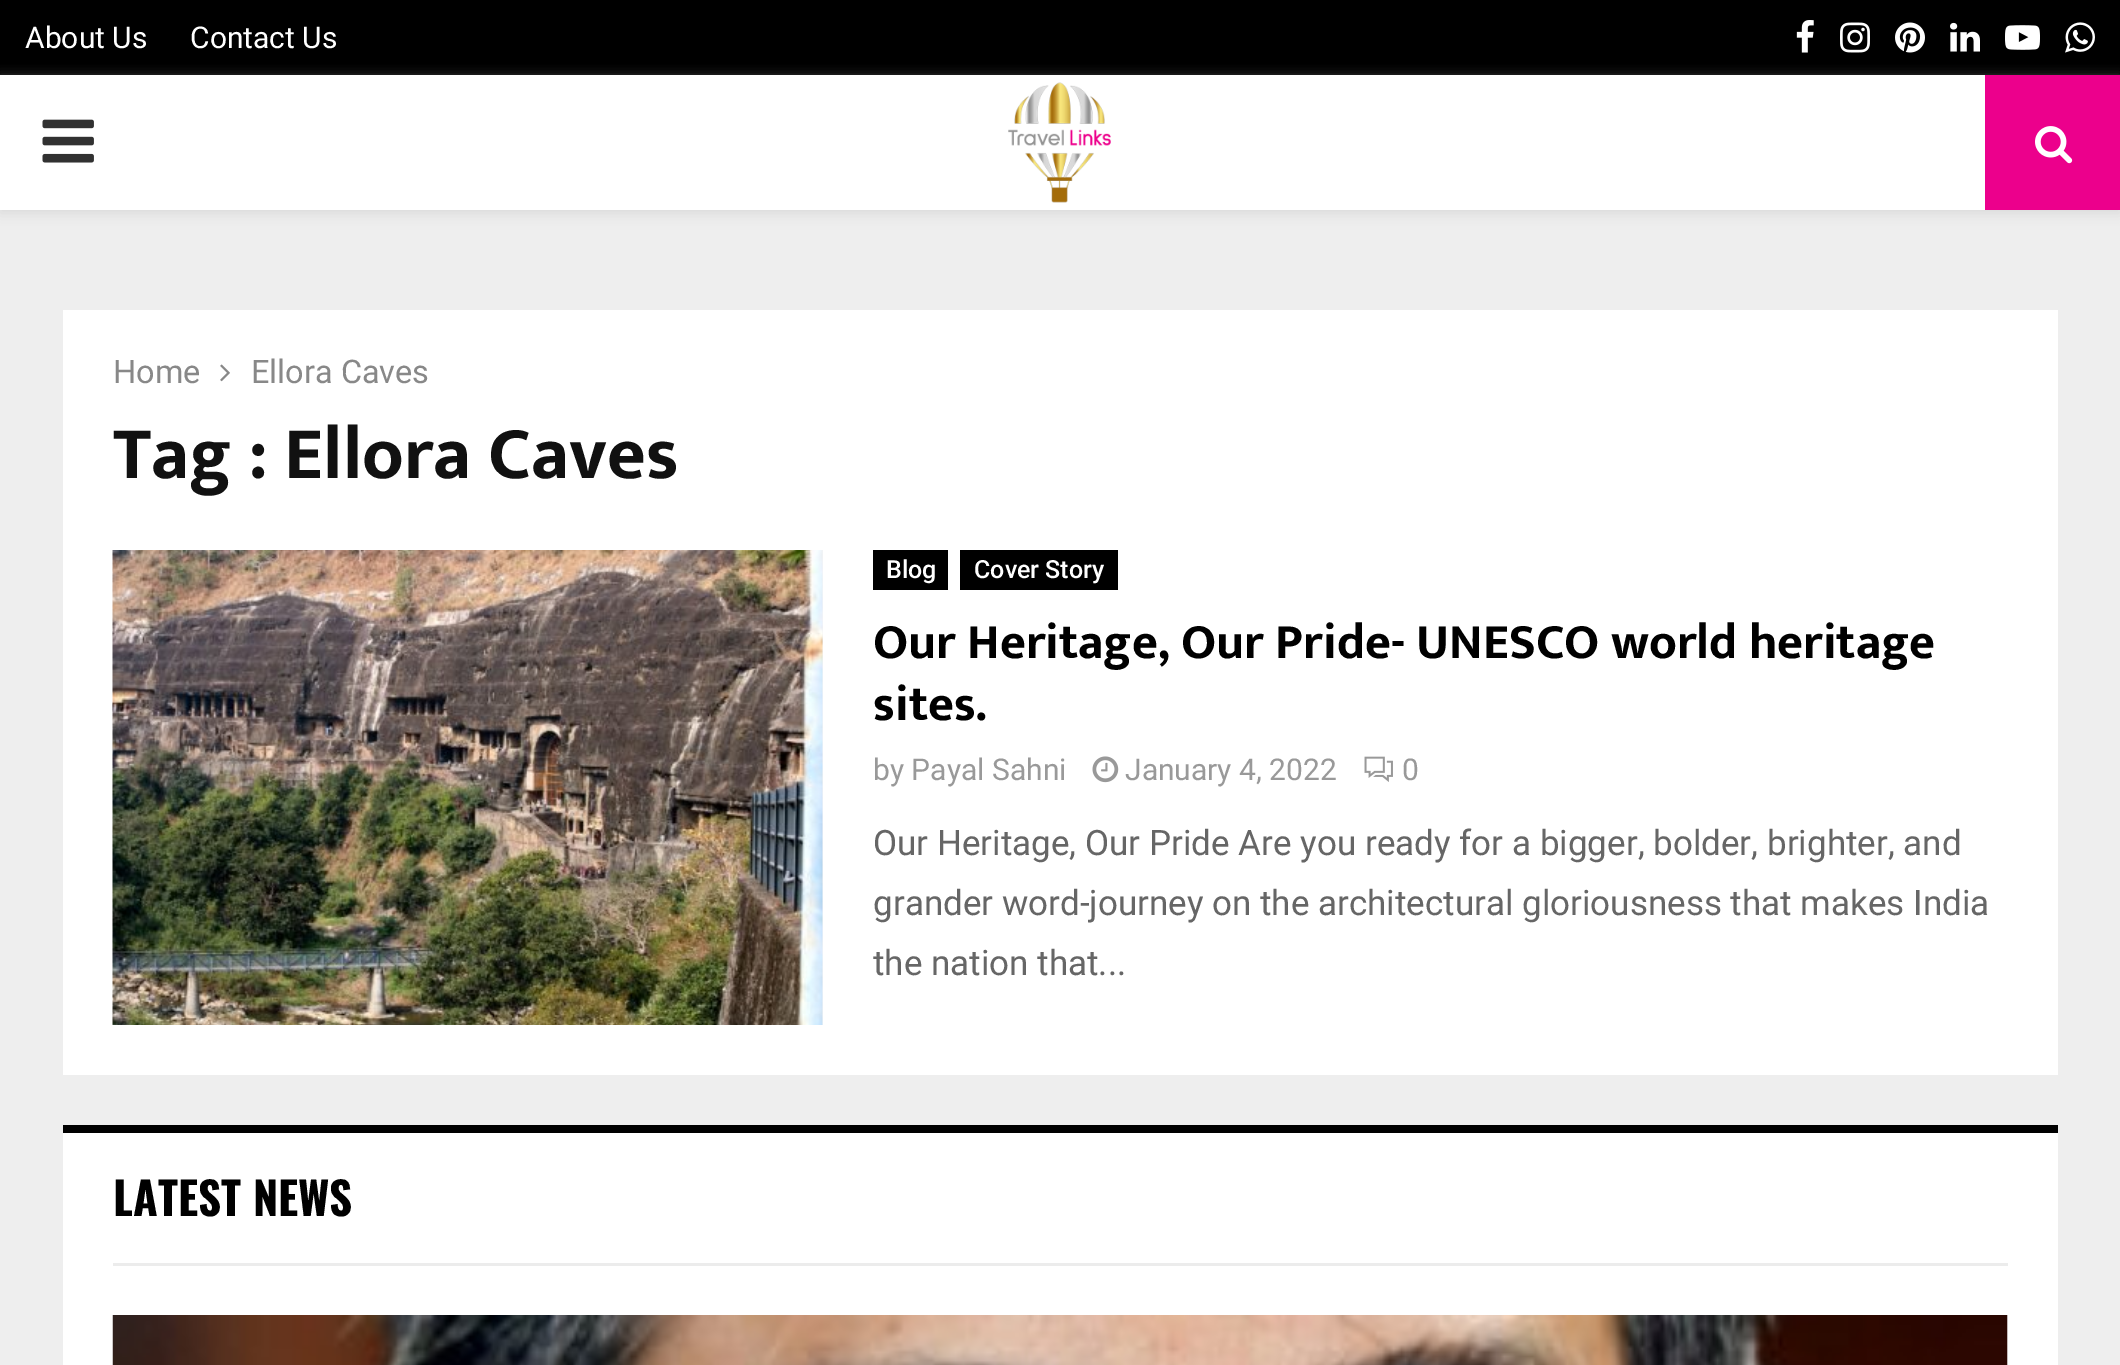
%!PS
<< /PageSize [2120 1365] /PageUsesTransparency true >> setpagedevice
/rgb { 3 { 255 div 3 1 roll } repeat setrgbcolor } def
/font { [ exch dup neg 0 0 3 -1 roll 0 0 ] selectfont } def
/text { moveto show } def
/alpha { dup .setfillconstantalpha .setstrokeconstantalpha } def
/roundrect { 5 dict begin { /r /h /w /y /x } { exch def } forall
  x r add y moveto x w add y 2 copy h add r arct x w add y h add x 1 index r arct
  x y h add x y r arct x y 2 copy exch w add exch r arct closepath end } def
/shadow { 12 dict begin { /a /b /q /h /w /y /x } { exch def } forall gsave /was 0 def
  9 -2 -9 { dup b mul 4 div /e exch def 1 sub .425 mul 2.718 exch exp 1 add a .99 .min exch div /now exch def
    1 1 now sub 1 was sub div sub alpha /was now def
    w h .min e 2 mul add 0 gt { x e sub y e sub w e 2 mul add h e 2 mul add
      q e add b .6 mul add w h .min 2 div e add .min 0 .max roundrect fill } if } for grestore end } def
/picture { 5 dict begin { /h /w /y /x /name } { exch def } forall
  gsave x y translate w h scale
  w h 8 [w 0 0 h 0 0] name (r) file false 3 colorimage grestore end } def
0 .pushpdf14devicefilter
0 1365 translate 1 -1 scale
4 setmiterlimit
238 238 238 rgb
0 0 2120 1365 rectfill
0 0 0 rgb
0 0 2120 75 rectfill
(img_01.rgb) 1796 20 18 33 picture
(img_02.rgb) 1840 22 30 31 picture
(img_03.rgb) 1895 22 30 31 picture
(img_04.rgb) 1950 22 30 30 picture
(img_05.rgb) 2005 25 35 25 picture
(img_06.rgb) 2065 22 30 31 picture
190 190 190 rgb
0 78 2120 135 0 6 0.46 shadow
255 255 255 rgb
0 75 1985 135 rectfill
(img_07.rgb) 42 119 52 44 picture
(img_08.rgb) 1008 82 103 121 picture
236 0 140 rgb
1985 75 135 135 rectfill
(img_09.rgb) 2035 126 38 38 picture
255 255 255 rgb
63 310 1995 765 rectfill
(img_10.rgb) 220 364 10 18 picture
245 245 245 rgb
822 550 1 475 rectfill
(img_11.rgb) 112 550 711 475 picture
0 0 0 rgb
873 550 75 40 rectfill
960 550 158 40 rectfill
(img_12.rgb) 1092 756 27 27 picture
(img_13.rgb) 1364 756 29 26 picture
255 255 255 rgb
63 1133 1995 232 rectfill
236 236 236 rgb
113 1263 1895 3 rectfill
0 0 0 rgb
63 1125 1995 8 rectfill
245 245 245 rgb
2007 1315 1 50 rectfill
(img_14.rgb) 112 1315 1896 50 picture
/Roboto-Regular 30 font
255 255 255 rgb
(About Us) 25 48 text
(Contact Us) 190 48 text
/Roboto-Regular 32.5 font
136 136 136 rgb
(Home) 113 383 text
(Ellora Caves) 251 383 text
/MuktaVaani-Bold 75 font
17 17 17 rgb
(Tag : Ellora Caves) 113 478 text
/Roboto-Medium 25 font
255 255 255 rgb
(Blog) 886 578 text
(Cover Story) 974 578 text
/MuktaVaani-Bold 50 font
0 0 0 rgb
(Our Heritage, Our Pride- UNESCO world heritage) 873 658 text
(sites.) 873 720 text
/Roboto-Regular 30 font
153 153 153 rgb
(by Payal Sahni) 873 780 text
(January 4, 2022) 1125 780 text
(0) 1402 780 text
/Roboto-Regular 35 font
102 102 102 rgb
(Our Heritage, Our Pride Are you ready for a bigger, bolder, brighter, and) 873 855 text
(grander word-journey on the architectural gloriousness that makes India) 873 915 text
(the nation that...) 873 975 text
/Oswald-Bold 45 font
0 0 0 rgb
(LATEST NEWS) 113 1216 text
.poppdf14devicefilter showpage
